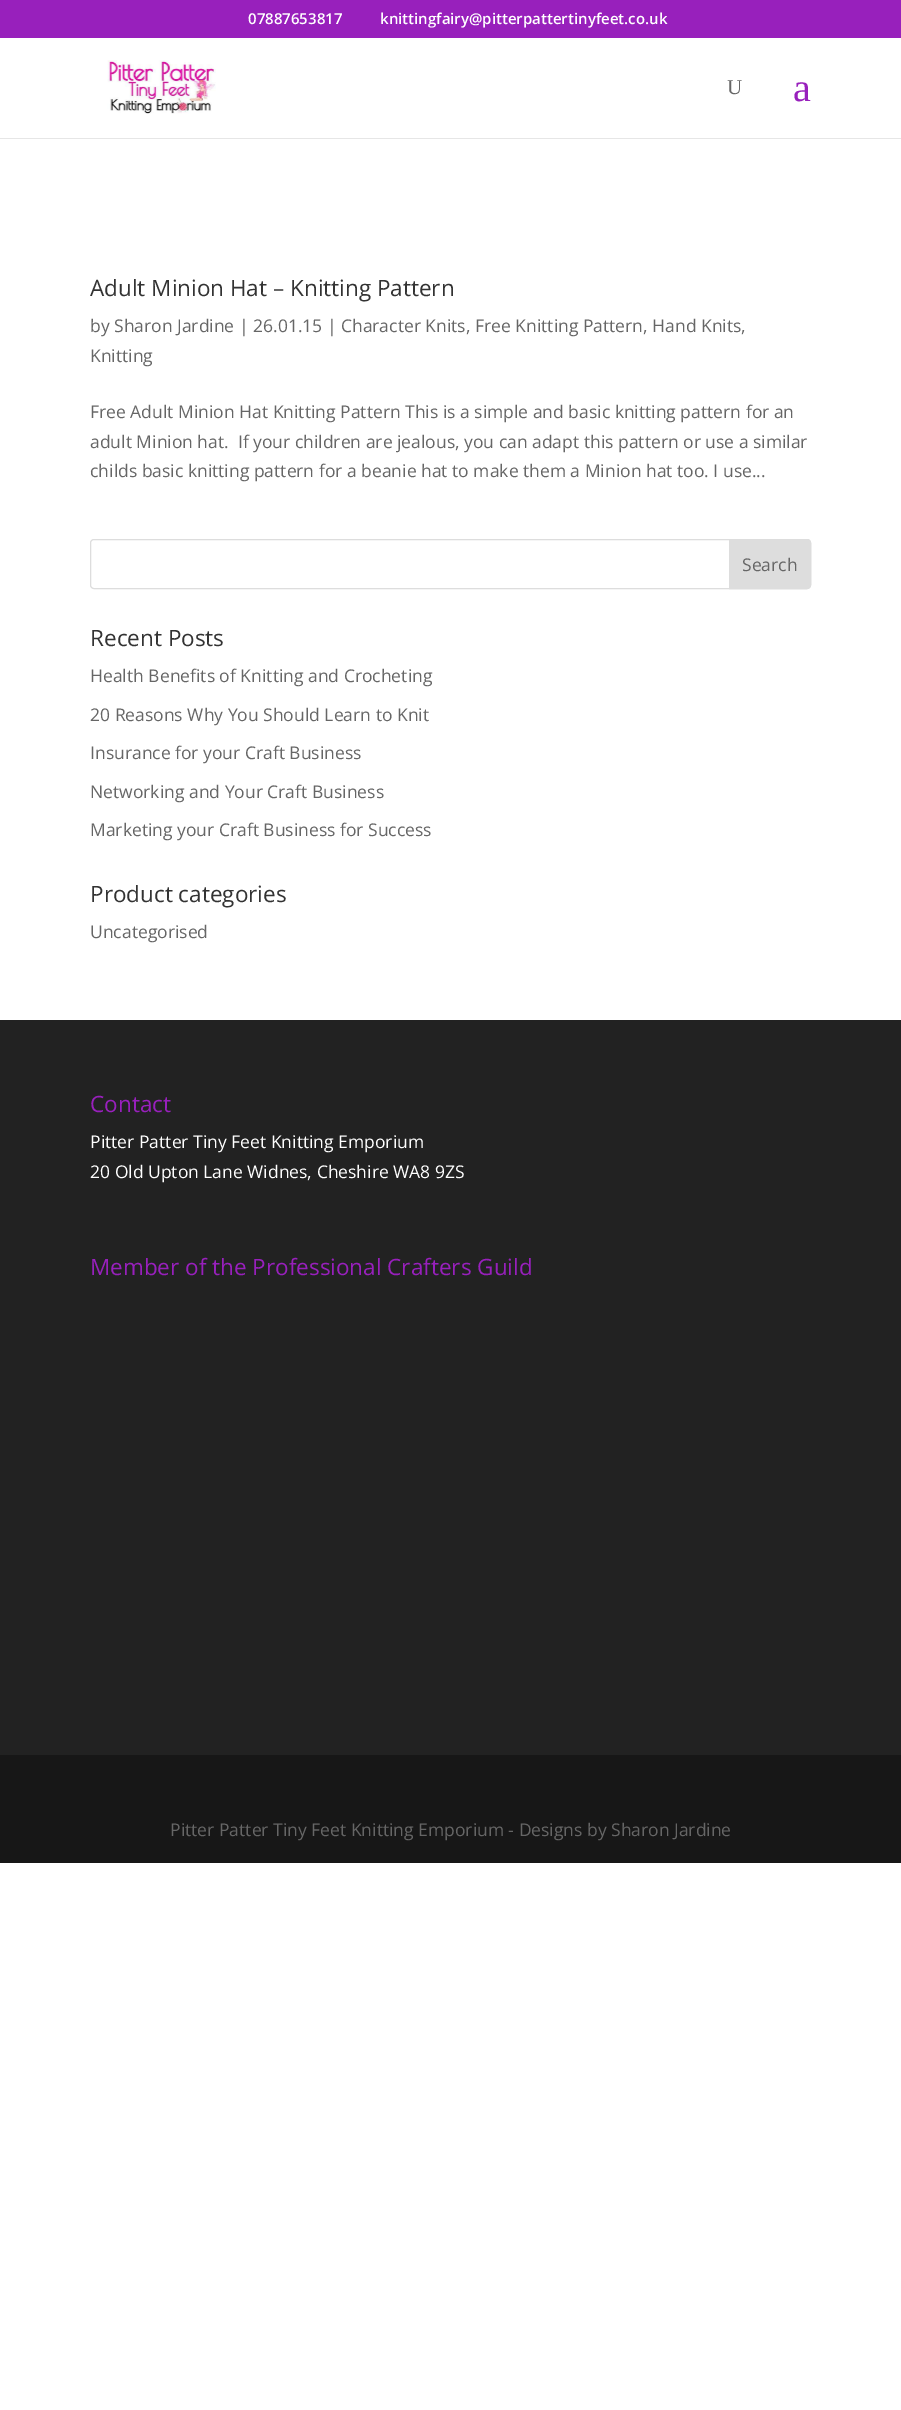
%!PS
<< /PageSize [901 2410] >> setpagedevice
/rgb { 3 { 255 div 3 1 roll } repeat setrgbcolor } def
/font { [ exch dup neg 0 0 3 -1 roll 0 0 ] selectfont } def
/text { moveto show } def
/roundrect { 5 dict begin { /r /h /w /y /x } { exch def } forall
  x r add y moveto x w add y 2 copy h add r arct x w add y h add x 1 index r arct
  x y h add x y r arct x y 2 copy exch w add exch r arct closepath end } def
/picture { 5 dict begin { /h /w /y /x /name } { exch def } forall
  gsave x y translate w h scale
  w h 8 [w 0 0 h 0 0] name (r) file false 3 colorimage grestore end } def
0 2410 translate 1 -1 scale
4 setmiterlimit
255 255 255 rgb
0 0 901 2410 rectfill
152 32 188 rgb
0 0 901 38 rectfill
230 230 230 rgb
0 138 901 1 rectfill
(img_01.rgb) 107 60 109 54 picture
221 221 221 rgb
90.5 539.5 720 49 3.5 roundrect stroke
729.5 539.5 moveto 77.5 0 rlineto 2 0 3.5 1.5 3.5 3.5 rcurveto 0 42 rlineto 0 2 -1.5 3.5 -3.5 3.5 rcurveto -77.5 0 rlineto closepath gsave fill grestore
stroke
34 34 34 rgb
0 1020 901 735 rectfill
23 23 23 rgb
0 1755 901 108 rectfill
/OpenSans-SemiBold 15 font
255 255 255 rgb
(07887653817) 248 24 text
(knittingfairy@pitterpattertinyfeet.co.uk) 380 24 text
/LiberationSerif-Regular 21 font
102 102 102 rgb
(U) 727 94 text
/LiberationSerif-Regular 40 font
152 32 188 rgb
(a) 793 101 text
/OpenSans-Regular 22.5 font
51 51 51 rgb
(Adult Minion Hat – Knitting Pattern) 90 296 text
/OpenSans-Regular 17.5 font
102 102 102 rgb
(by Sharon Jardine | 26.01.15 | Character Knits, Free Knitting Pattern, Hand Knits,) 90 332 text
(Knitting) 90 362 text
(Free Adult Minion Hat Knitting Pattern This is a simple and basic knitting pattern for an) 90 418 text
(adult Minion hat.  If your children are jealous, you can adapt this pattern or use a similar) 90 448 text
(childs basic knitting pattern for a beanie hat to make them a Minion hat too. I use...) 90 477 text
(Search) 742 571 text
/OpenSans-Regular 22.5 font
51 51 51 rgb
(Recent Posts) 90 646 text
/OpenSans-Regular 17.5 font
102 102 102 rgb
(Health Benefits of Knitting and Crocheting) 90 682 text
(20 Reasons Why You Should Learn to Knit) 90 721 text
(Insurance for your Craft Business) 90 759 text
(Networking and Your Craft Business) 90 798 text
(Marketing your Craft Business for Success) 90 836 text
/OpenSans-Regular 22.5 font
51 51 51 rgb
(Product categories) 90 902 text
/OpenSans-Regular 17.5 font
102 102 102 rgb
(Uncategorised) 90 938 text
/OpenSans-Regular 22.5 font
152 32 188 rgb
(Contact) 90 1112 text
/OpenSans-Regular 17.5 font
255 255 255 rgb
(Pitter Patter Tiny Feet Knitting Emporium) 90 1148 text
(20 Old Upton Lane Widnes, Cheshire WA8 9ZS) 90 1178 text
/OpenSans-Regular 22.5 font
152 32 188 rgb
(Member of the Professional Crafters Guild) 90 1275 text
/OpenSans-Regular 17.5 font
102 102 102 rgb
(Pitter Patter Tiny Feet Knitting Emporium - Designs by Sharon Jardine) 170 1836 text
showpage
